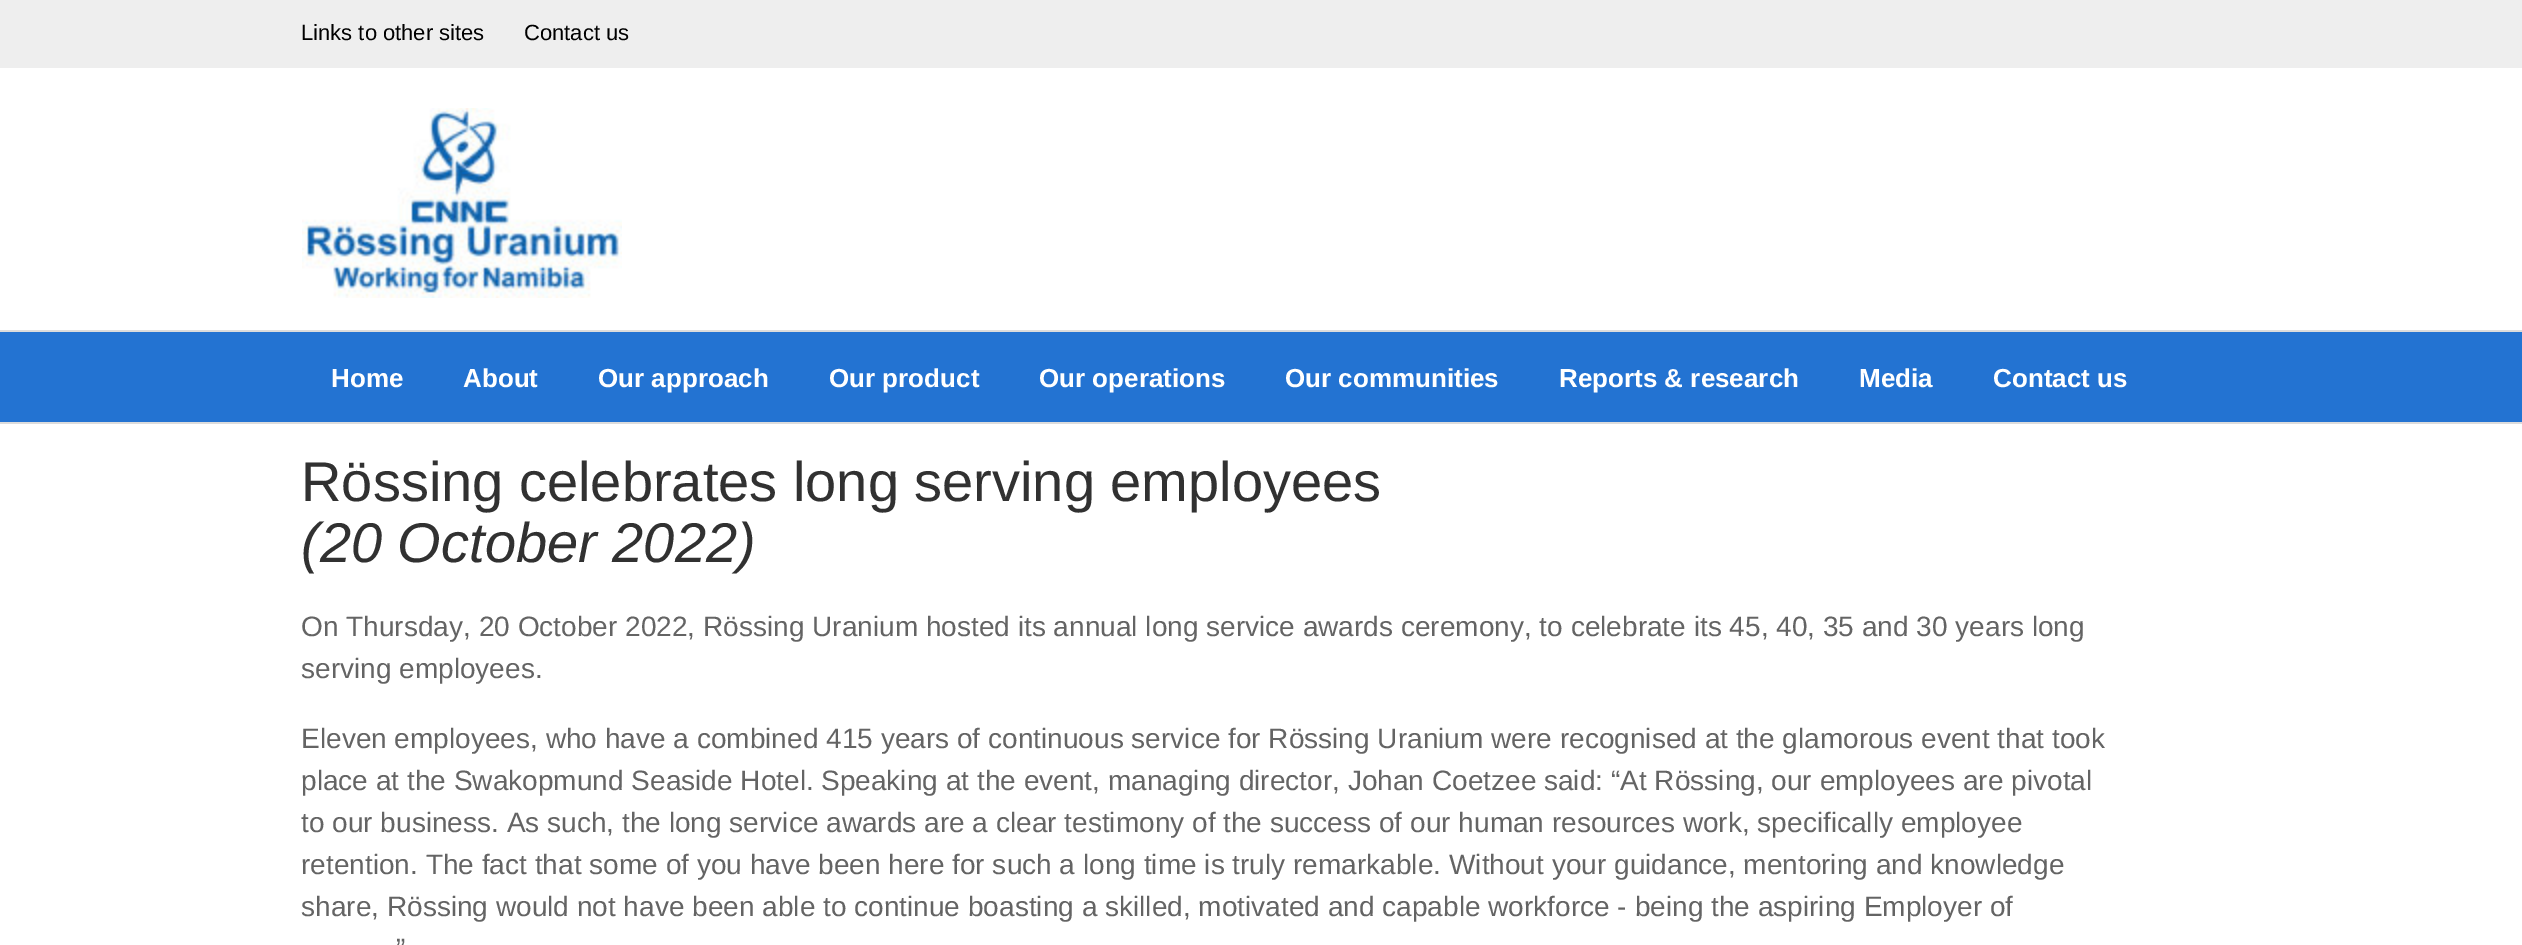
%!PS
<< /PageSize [2522 945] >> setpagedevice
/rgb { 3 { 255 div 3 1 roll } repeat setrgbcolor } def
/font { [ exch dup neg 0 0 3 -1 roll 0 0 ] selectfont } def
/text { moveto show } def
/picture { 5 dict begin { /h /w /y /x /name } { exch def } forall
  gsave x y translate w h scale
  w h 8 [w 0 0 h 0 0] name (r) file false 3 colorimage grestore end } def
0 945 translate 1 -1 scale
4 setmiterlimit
255 255 255 rgb
0 0 2522 945 rectfill
238 238 238 rgb
0 0 2522 68 rectfill
220 220 220 rgb
0 330 2522 2 rectfill
(img_01.rgb) 302 108 320 190 picture
35 115 210 rgb
0 332 2522 90 rectfill
220 220 220 rgb
0 422 2522 2 rectfill
/LiberationSans-Regular 22 font
0 0 0 rgb
(Links to other sites) 301 40 text
(Contact us) 524 40 text
/LiberationSans-Bold 26 font
255 255 255 rgb
(Home) 331 387 text
(About) 463 387 text
(Our approach) 598 387 text
(Our product) 829 387 text
(Our operations) 1039 387 text
(Our communities) 1285 387 text
(Reports & research) 1559 387 text
(Media) 1859 387 text
(Contact us) 1993 387 text
/LiberationSans-Regular 56 font
49 49 49 rgb
(Rössing celebrates long serving employees) 301 501 text
/LiberationSans-Italic 56 font
(\(20 October 2022\)) 301 562 text
/LiberationSans-Regular 28.03 font
100 100 100 rgb
(On Thursday, 20 October 2022, Rössing Uranium hosted its annual long service awards ceremony, to celebrate its 45, 40, 35 and 30 years long) 301 636 text
(serving employees.) 301 678 text
(Eleven employees, who have a combined 415 years of continuous service for Rössing Uranium were recognised at the glamorous event that took) 301 748 text
(place at the Swakopmund Seaside Hotel.) 301 790 text
(Speaking at the event, managing director, Johan Coetzee said: “At Rössing, our employees are pivotal) 821 790 text
(to our business. As such, the long service awards are a clear testimony of the success of our human resources work, specifically employee) 301 832 text
(retention. The fact that some of you have) 301 874 text
(been here for such a long time is truly remarkable. Without your guidance, mentoring and knowledge) 818 874 text
(share, Rössing would not have been able to continue boasting a skilled, motivated and capable workforce - being the aspiring Employer of) 301 916 text
(”) 396 958 text
showpage
